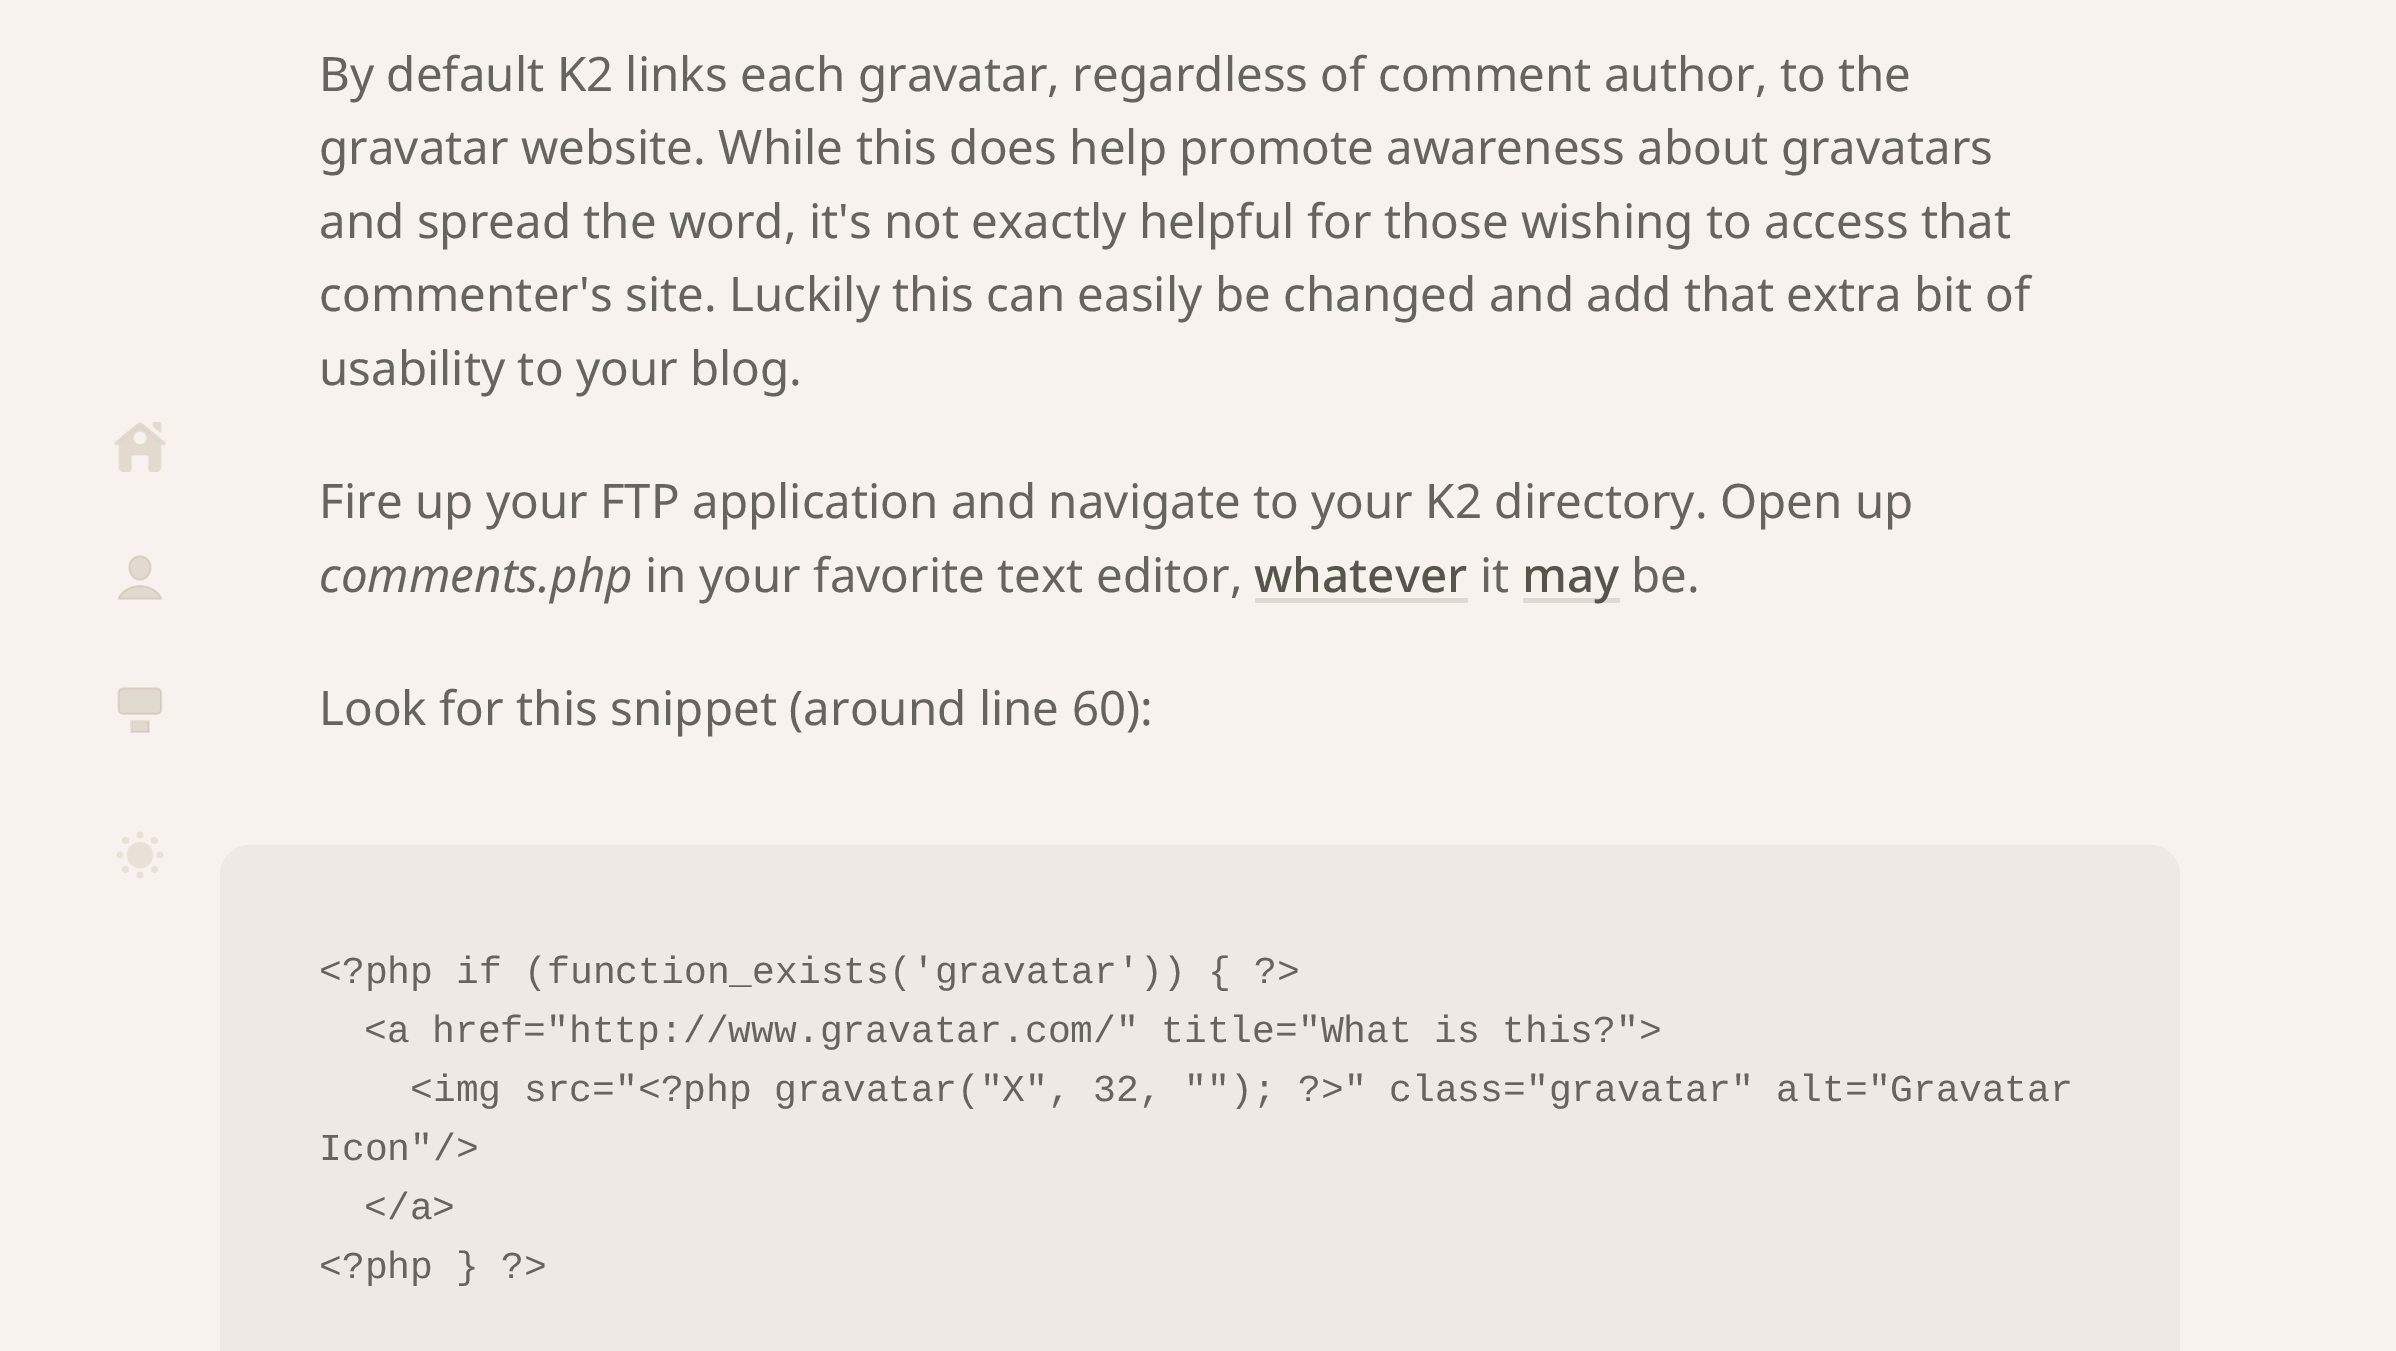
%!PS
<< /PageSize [2396 1351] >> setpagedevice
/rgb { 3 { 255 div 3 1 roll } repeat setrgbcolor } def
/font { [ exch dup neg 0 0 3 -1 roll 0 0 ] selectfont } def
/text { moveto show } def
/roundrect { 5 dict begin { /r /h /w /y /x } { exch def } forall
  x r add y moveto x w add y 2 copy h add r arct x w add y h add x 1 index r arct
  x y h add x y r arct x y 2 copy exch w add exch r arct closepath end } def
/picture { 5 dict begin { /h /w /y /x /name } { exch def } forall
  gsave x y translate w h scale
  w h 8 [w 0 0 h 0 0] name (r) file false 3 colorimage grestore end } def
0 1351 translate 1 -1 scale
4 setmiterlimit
247 242 237 rgb
0 0 2396 1351 rectfill
(img_01.rgb) 114 422 52 50 picture
(img_02.rgb) 117 555 45 45 picture
(img_03.rgb) 117 687 46 46 picture
(img_04.rgb) 116 831 48 48 picture
223 217 212 rgb
1255 598 213 5 rectfill
1523 598 97 5 rectfill
239 233 229 rgb
220 845 1960 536 30 roundrect fill
/NotoSans-Regular 47.5 font
103 99 94 rgb
(By default K2 links each gravatar, regardless of comment author, to the) 319 91 text
(gravatar website. While this does help promote awareness about gravatars) 319 164 text
(and spread the word, it's not exactly helpful for those wishing to access that) 319 238 text
(commenter's site. Luckily this can easily be changed and add that extra bit of) 319 311 text
(usability to your blog.) 319 385 text
(Fire up your FTP application and navigate to your K2 directory. Open up) 319 518 text
/NotoSans-Italic 47.5 font
(comments.php) 319 592 text
/NotoSans-Regular 47.5 font
(in your favorite text editor,) 645 592 text
/NotoSans-Medium 47.5 font
87 83 77 rgb
(whatever) 1254 592 text
/NotoSans-Regular 47.5 font
103 99 94 rgb
(it) 1480 592 text
/NotoSans-Medium 47.5 font
87 83 77 rgb
(may) 1522 592 text
/NotoSans-Regular 47.5 font
103 99 94 rgb
(be.) 1631 592 text
(Look for this snippet \(around line 60\):) 319 725 text
/LiberationMono-Regular 38 font
(<?php if \(function_exists\('gravatar'\)\) { ?>) 319 983 text
364 1042 moveto -0.5 0 32 (<a href="http://www.gravatar.com/" title="What is this?">) widthshow
410 1101 moveto -0.25 0 32 (<img src="<?php gravatar\("X", 32, ""\); ?>" class="gravatar" alt="Gravatar) widthshow
(Icon"/>) 319 1160 text
(</a>) 364 1219 text
(<?php } ?>) 319 1278 text
showpage
